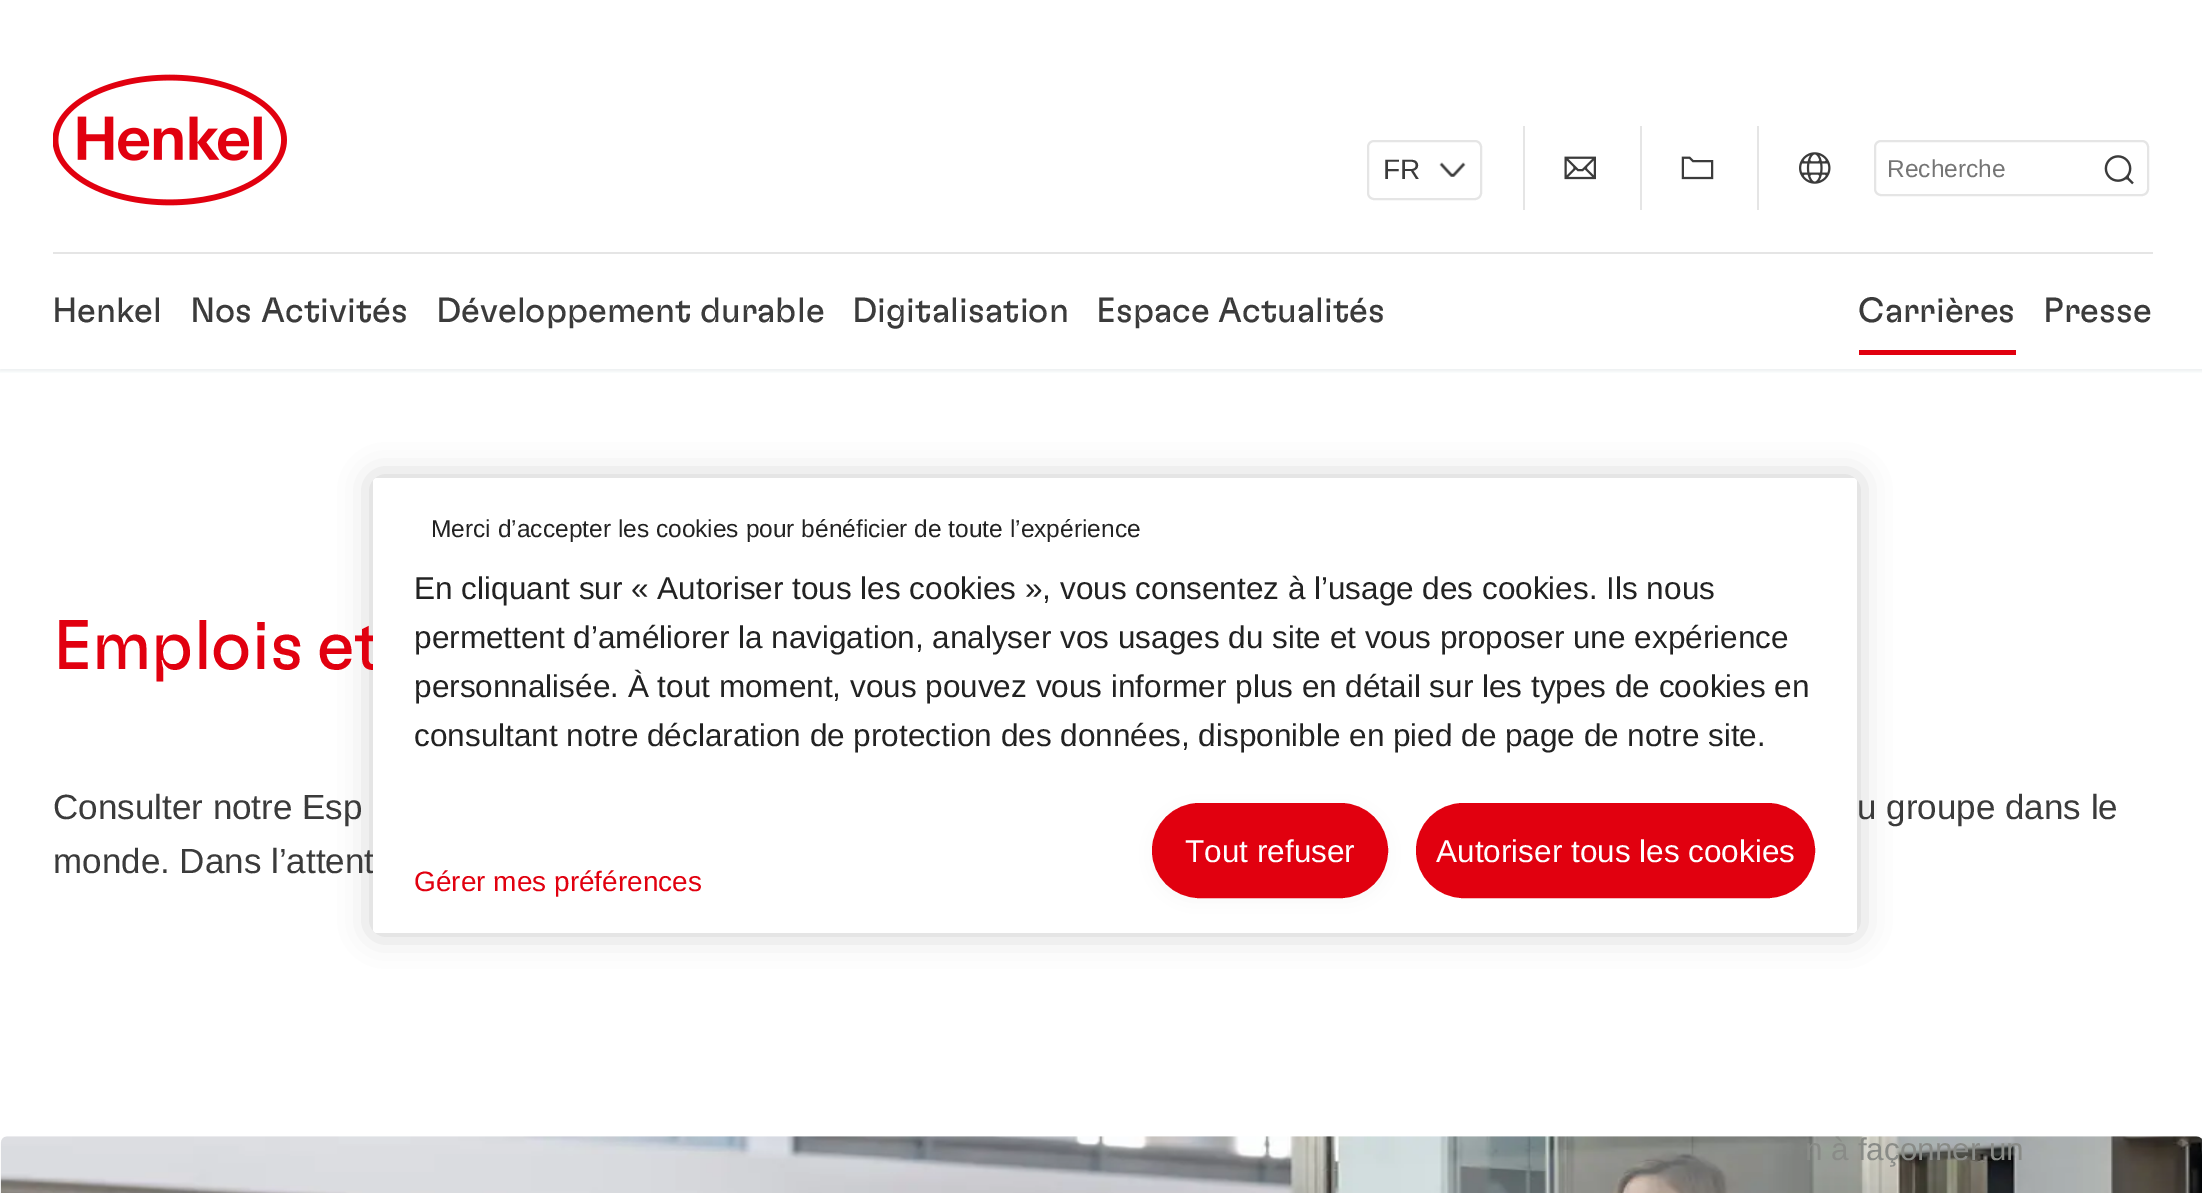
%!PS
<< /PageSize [2202 1193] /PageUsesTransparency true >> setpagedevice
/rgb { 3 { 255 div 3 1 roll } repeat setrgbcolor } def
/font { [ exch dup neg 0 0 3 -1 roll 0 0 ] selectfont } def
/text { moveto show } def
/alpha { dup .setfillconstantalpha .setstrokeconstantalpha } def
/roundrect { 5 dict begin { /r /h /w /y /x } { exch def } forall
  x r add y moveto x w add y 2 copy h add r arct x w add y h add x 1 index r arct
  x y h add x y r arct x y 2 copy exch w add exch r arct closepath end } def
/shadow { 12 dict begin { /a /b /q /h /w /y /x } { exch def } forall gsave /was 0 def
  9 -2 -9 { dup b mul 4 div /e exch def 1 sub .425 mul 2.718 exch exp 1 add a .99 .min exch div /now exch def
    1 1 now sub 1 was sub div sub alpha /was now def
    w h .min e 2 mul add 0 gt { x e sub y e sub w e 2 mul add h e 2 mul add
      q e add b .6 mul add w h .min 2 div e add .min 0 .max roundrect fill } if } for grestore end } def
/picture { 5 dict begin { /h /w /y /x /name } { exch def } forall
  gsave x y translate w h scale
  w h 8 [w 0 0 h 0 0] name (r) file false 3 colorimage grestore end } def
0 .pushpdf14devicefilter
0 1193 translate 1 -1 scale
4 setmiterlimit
255 255 255 rgb
0 0 2202 1193 rectfill
gsave
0 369 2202 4 rectclip
120 135 145 rgb
0 2 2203 369 0 2 0.15 shadow
grestore
(img_01.rgb) 53 74 234 132 picture
229 229 229 rgb
2 setlinewidth
1368 141 113 58 6 roundrect stroke
(img_02.rgb) 1439 162 27 15 picture
1523 126 2 84 rectfill
(img_03.rgb) 1564 156 32 24 picture
1640 126 2 84 rectfill
(img_04.rgb) 1681 156 33 24 picture
1757 126 2 84 rectfill
(img_05.rgb) 1799 152 32 32 picture
1875 141 273 54 6 roundrect stroke
(img_06.rgb) 2104 155 30 30 picture
53 252 2100 2 rectfill
225 0 15 rgb
1859 350 157 5 rectfill
(img_07.rgb) 0 1136 2202 57 picture
0 0 0 rgb
373 478 1484 455 4 16 0.2 shadow
/LiberationSans-Regular 28 font
59 59 59 rgb
(FR) 1383 179 text
/LiberationSans-Regular 24.5 font
117 117 117 rgb
(Recherche) 1887 177 text
/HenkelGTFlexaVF-Regular 35 font
59 59 59 rgb
(Henkel) 52 322 text
/LiberationSans-Regular 31.5 font
137 139 135 rgb
(n à façonner un) 1805 1160 text
/HenkelGTFlexaVF-Regular 35 font
59 59 59 rgb
(Nos Activités) 190 322 text
(Développement durable) 436 322 text
(Digitalisation) 852 322 text
(Espace Actualités) 1096 322 text
(Carrières) 1858 322 text
(Presse) 2043 322 text
/HenkelGTFlexaVF-Regular 70 font
225 0 15 rgb
53 669 moveto -4 0 32 (Emplois et) widthshow
/LiberationSans-Regular 35 font
59 59 59 rgb
(Consulter notre Esp) 53 819 text
(u groupe dans le) 1857 819 text
(monde. Dans l’attent) 53 873 text
255 255 255 rgb
373 478 1484 455 4 roundrect fill
/LiberationSans-Regular 24.5 font
34 34 34 rgb
(Merci d’accepter les cookies pour bénéficier de toute l’expérience) 431 537 text
/LiberationSans-Regular 31.5 font
(En cliquant sur « Autoriser tous les cookies », vous consentez à l’usage des cookies. Ils nous) 414 599 text
(permettent d’améliorer la navigation, analyser vos usages du site et vous proposer une expérience) 414 648 text
(personnalisée. À tout moment, vous pouvez vous informer plus en détail sur les types de cookies en) 414 697 text
(consultant notre déclaration de protection des données, disponible en pied de page de notre site.) 414 746 text
0 0 0 rgb
1152 807 236 94 47 10.5 0.04 shadow
225 0 15 rgb
1153 804 234 93 46.5 roundrect gsave fill grestore
stroke
255 255 255 rgb
(Tout refuser) 1185 862 text
225 0 15 rgb
1417 804 397 93 46.5 roundrect gsave fill grestore
stroke
255 255 255 rgb
(Autoriser tous les cookies) 1436 862 text
/LiberationSans-Regular 28 font
225 0 15 rgb
(Gérer mes préférences) 414 891 text
.poppdf14devicefilter showpage
